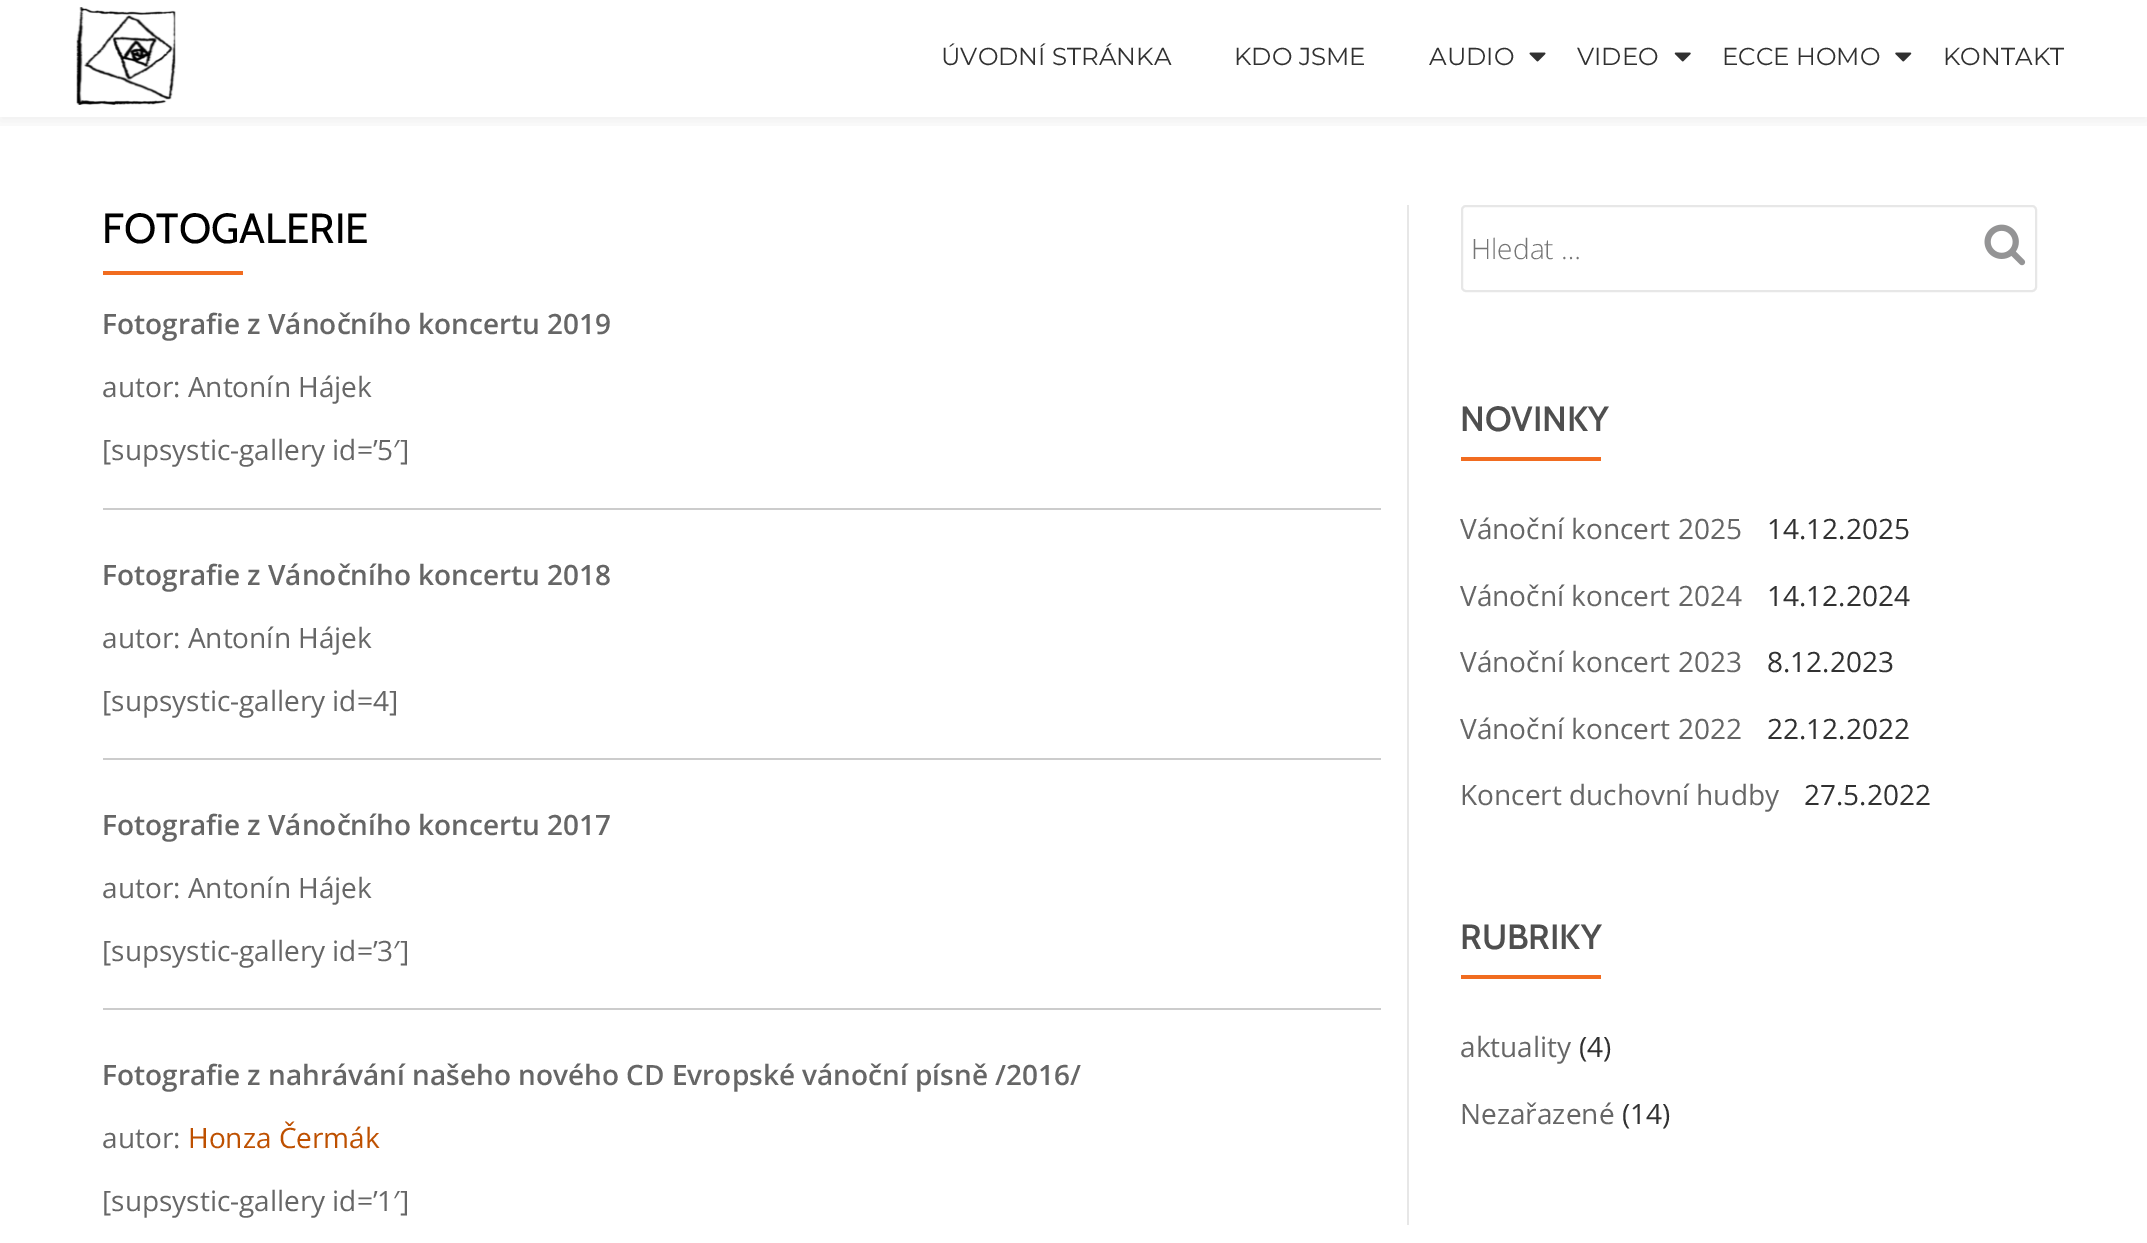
%!PS
<< /PageSize [2147 1243] /PageUsesTransparency true >> setpagedevice
/rgb { 3 { 255 div 3 1 roll } repeat setrgbcolor } def
/font { [ exch dup neg 0 0 3 -1 roll 0 0 ] selectfont } def
/text { moveto show } def
/alpha { dup .setfillconstantalpha .setstrokeconstantalpha } def
/roundrect { 5 dict begin { /r /h /w /y /x } { exch def } forall
  x r add y moveto x w add y 2 copy h add r arct x w add y h add x 1 index r arct
  x y h add x y r arct x y 2 copy exch w add exch r arct closepath end } def
/shadow { 12 dict begin { /a /b /q /h /w /y /x } { exch def } forall gsave /was 0 def
  9 -2 -9 { dup b mul 4 div /e exch def 1 sub .425 mul 2.718 exch exp 1 add a .99 .min exch div /now exch def
    1 1 now sub 1 was sub div sub alpha /was now def
    w h .min e 2 mul add 0 gt { x e sub y e sub w e 2 mul add h e 2 mul add
      q e add b .6 mul add w h .min 2 div e add .min 0 .max roundrect fill } if } for grestore end } def
/picture { 5 dict begin { /h /w /y /x /name } { exch def } forall
  gsave x y translate w h scale
  w h 8 [w 0 0 h 0 0] name (r) file false 3 colorimage grestore end } def
0 .pushpdf14devicefilter
0 1243 translate 1 -1 scale
4 setmiterlimit
255 255 255 rgb
0 0 2147 1243 rectfill
gsave
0 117 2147 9 rectclip
50 50 50 rgb
0 -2 2147 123 0 7 0.08 shadow
grestore
(img_01.rgb) 76 7 100 98 picture
(img_02.rgb) 1529 52 17 10 picture
(img_03.rgb) 1674 52 17 10 picture
(img_04.rgb) 1895 52 17 10 picture
241 108 32 rgb
103 271 140 4 rectfill
204 204 204 rgb
103 508 1278 2 rectfill
103 758 1278 2 rectfill
103 1008 1278 2 rectfill
231 231 231 rgb
1407 205 2 1020 rectfill
2 setlinewidth
1462 206 574 85 4 roundrect stroke
(img_05.rgb) 1984 224 42 42 picture
241 108 32 rgb
1461 457 140 4 rectfill
1461 975 140 4 rectfill
/Montserrat-Regular 24.5 font
49 49 49 rgb
(ÚVODNÍ STRÁNKA) 941 65 text
(KDO JSME) 1234 65 text
(AUDIO) 1429 65 text
(VIDEO) 1577 65 text
(ECCE HOMO) 1722 65 text
(KONTAKT) 1943 65 text
/Cabin-Regular 42 font
0 0 0 rgb
(FOTOGALERIE) 102 243 text
/OpenSans-SemiBold 28 font
102 102 102 rgb
(Fotografie z Vánočního koncertu 2019) 102 334 text
/OpenSans-Regular 28 font
(autor: Antonín Hájek) 102 397 text
([supsystic-gallery id=’5′]) 102 460 text
/OpenSans-SemiBold 28 font
(Fotografie z Vánočního koncertu 2018) 102 585 text
/OpenSans-Regular 28 font
(autor: Antonín Hájek) 102 648 text
([supsystic-gallery id=4]) 102 711 text
/OpenSans-SemiBold 28 font
(Fotografie z Vánočního koncertu 2017) 102 835 text
/OpenSans-Regular 28 font
(autor: Antonín Hájek) 102 898 text
([supsystic-gallery id=’3′]) 102 961 text
/OpenSans-SemiBold 28 font
(Fotografie z nahrávání našeho nového CD Evropské vánoční písně /2016/) 102 1085 text
/OpenSans-Regular 28 font
(autor:) 102 1148 text
190 80 0 rgb
(Honza Čermák) 188 1148 text
102 102 102 rgb
([supsystic-gallery id=’1′]) 102 1211 text
/OpenSans-Light 28 font
117 117 117 rgb
(Hledat …) 1471 259 text
/Cabin-SemiBold 35 font
79 79 79 rgb
(NOVINKY) 1460 431 text
/OpenSans-Regular 28 font
102 102 102 rgb
(Vánoční koncert 2025) 1460 539 text
49 49 49 rgb
(14.12.2025) 1767 539 text
102 102 102 rgb
(Vánoční koncert 2024) 1460 606 text
49 49 49 rgb
(14.12.2024) 1767 606 text
102 102 102 rgb
(Vánoční koncert 2023) 1460 672 text
49 49 49 rgb
(8.12.2023) 1767 672 text
102 102 102 rgb
(Vánoční koncert 2022) 1460 739 text
49 49 49 rgb
(22.12.2022) 1767 739 text
102 102 102 rgb
(Koncert duchovní hudby) 1460 805 text
49 49 49 rgb
(27.5.2022) 1804 805 text
/Cabin-SemiBold 35 font
79 79 79 rgb
(RUBRIKY) 1460 949 text
/OpenSans-Regular 28 font
102 102 102 rgb
(aktuality) 1460 1057 text
49 49 49 rgb
(\(4\)) 1579 1057 text
102 102 102 rgb
(Nezařazené) 1460 1124 text
49 49 49 rgb
(\(14\)) 1622 1124 text
.poppdf14devicefilter showpage
